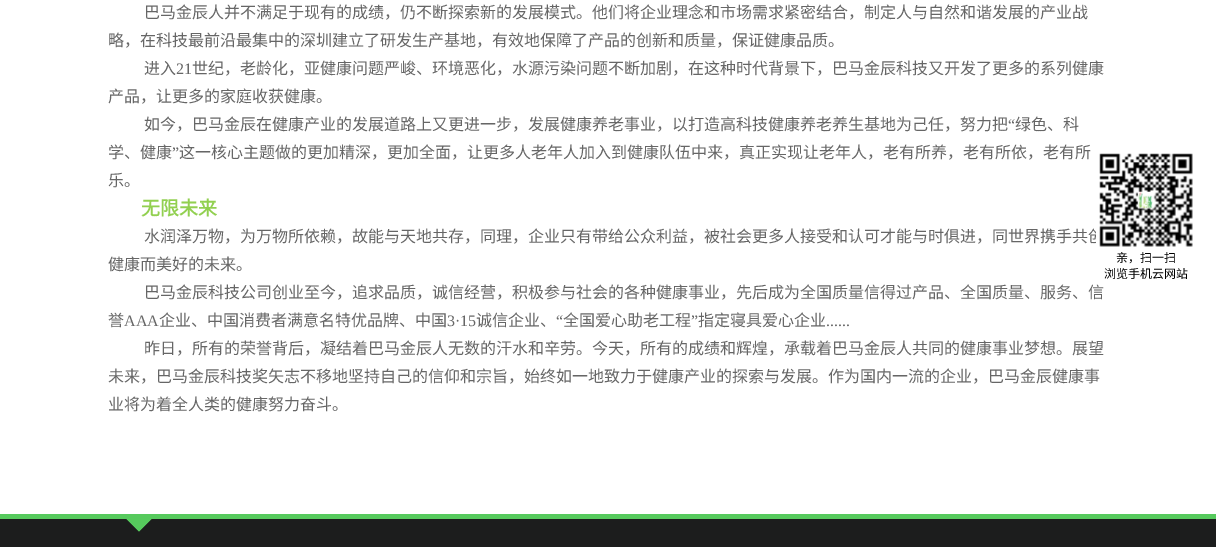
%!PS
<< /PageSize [1216 547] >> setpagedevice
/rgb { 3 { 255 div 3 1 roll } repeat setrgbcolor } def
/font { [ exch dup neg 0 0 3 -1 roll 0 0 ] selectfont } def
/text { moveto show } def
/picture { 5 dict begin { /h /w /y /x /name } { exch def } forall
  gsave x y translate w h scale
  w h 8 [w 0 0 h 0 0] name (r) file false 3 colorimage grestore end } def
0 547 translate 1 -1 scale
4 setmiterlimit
255 255 255 rgb
0 0 1216 547 rectfill
28 29 29 rgb
0 519 1216 28 rectfill
86 202 93 rgb
0 514 1216 5 rectfill
126 519 moveto 26 0 rlineto -13 13 rlineto closepath fill
28 29 29 rgb
152 519 moveto 0 26 rlineto -13 -13 rlineto closepath 126 545 moveto 0 -26 rlineto 13 13 rlineto closepath fill
/NotoSansCJKSC-Regular 16 font
102 102 102 rgb
(巴马金辰人并不满足于现有的成绩，仍不断探索新的发展模式。他们将企业理念和市场需求紧密结合，制定人与自然和谐发展的产业战) 144 18 text
(略，在科技最前沿最集中的深圳建立了研发生产基地，有效地保障了产品的创新和质量，保证健康品质。) 108 46 text
(进入) 144 74 text
/LiberationSerif-Regular 16 font
(21) 176 74 text
/NotoSansCJKSC-Regular 16 font
(世纪，老龄化，亚健康问题严峻、环境恶化，水源污染问题不断加剧，在这种时代背景下，巴马金辰科技又开发了更多的系列健康) 192 74 text
(产品，让更多的家庭收获健康。) 108 102 text
(如今，巴马金辰在健康产业的发展道路上又更进一步，发展健康养老事业，以打造高科技健康养老养生基地为己任，努力把) 144 130 text
/LiberationSerif-Regular 16 font
(“) 1008 130 text
/NotoSansCJKSC-Regular 16 font
(绿色、科) 1015 130 text
(学、健康) 108 158 text
/LiberationSerif-Regular 16 font
(”) 172 158 text
/NotoSansCJKSC-Regular 16 font
(这一核心主题做的更加精深，更加全面，让更多人老年人加入到健康队伍中来，真正实现让老年人，老有所养，老有所依，老有所) 179 158 text
(乐。) 108 186 text
/NotoSansCJKSC-Bold 19 font
146 208 80 rgb
(无限未来) 141 215 text
/NotoSansCJKSC-Regular 16 font
102 102 102 rgb
(水润泽万物，为万物所依赖，故能与天地共存，同理，企业只有带给公众利益，被社会更多人接受和认可才能与时俱进，同世界携手共创) 144 242 text
(健康而美好的未来。) 108 270 text
(巴马金辰科技公司创业至今，追求品质，诚信经营，积极参与社会的各种健康事业，先后成为全国质量信得过产品、全国质量、服务、信) 144 298 text
(誉) 108 326 text
/LiberationSerif-Regular 16 font
(AAA) 124 326 text
/NotoSansCJKSC-Regular 16 font
(企业、中国消费者满意名特优品牌、中国) 159 326 text
/LiberationSerif-Regular 16 font
(3·15) 447 326 text
/NotoSansCJKSC-Regular 16 font
(诚信企业、) 476 326 text
/LiberationSerif-Regular 16 font
(“) 556 326 text
/NotoSansCJKSC-Regular 16 font
(全国爱心助老工程) 563 326 text
/LiberationSerif-Regular 16 font
(”) 691 326 text
/NotoSansCJKSC-Regular 16 font
(指定寝具爱心企业) 698 326 text
/LiberationSerif-Regular 16 font
(......) 826 326 text
/NotoSansCJKSC-Regular 16 font
(昨日，所有的荣誉背后，凝结着巴马金辰人无数的汗水和辛劳。今天，所有的成绩和辉煌，承载着巴马金辰人共同的健康事业梦想。展望) 144 354 text
(未来，巴马金辰科技奖矢志不移地坚持自己的信仰和宗旨，始终如一地致力于健康产业的探索与发展。作为国内一流的企业，巴马金辰健康事) 108 382 text
(业将为着全人类的健康努力奋斗。) 108 410 text
(img_01.rgb) 1096 153 97 94 picture
/NotoSansCJKSC-Regular 12 font
0 0 0 rgb
(亲，扫一扫) 1116 262 text
(浏览手机云网站) 1104 278 text
showpage
